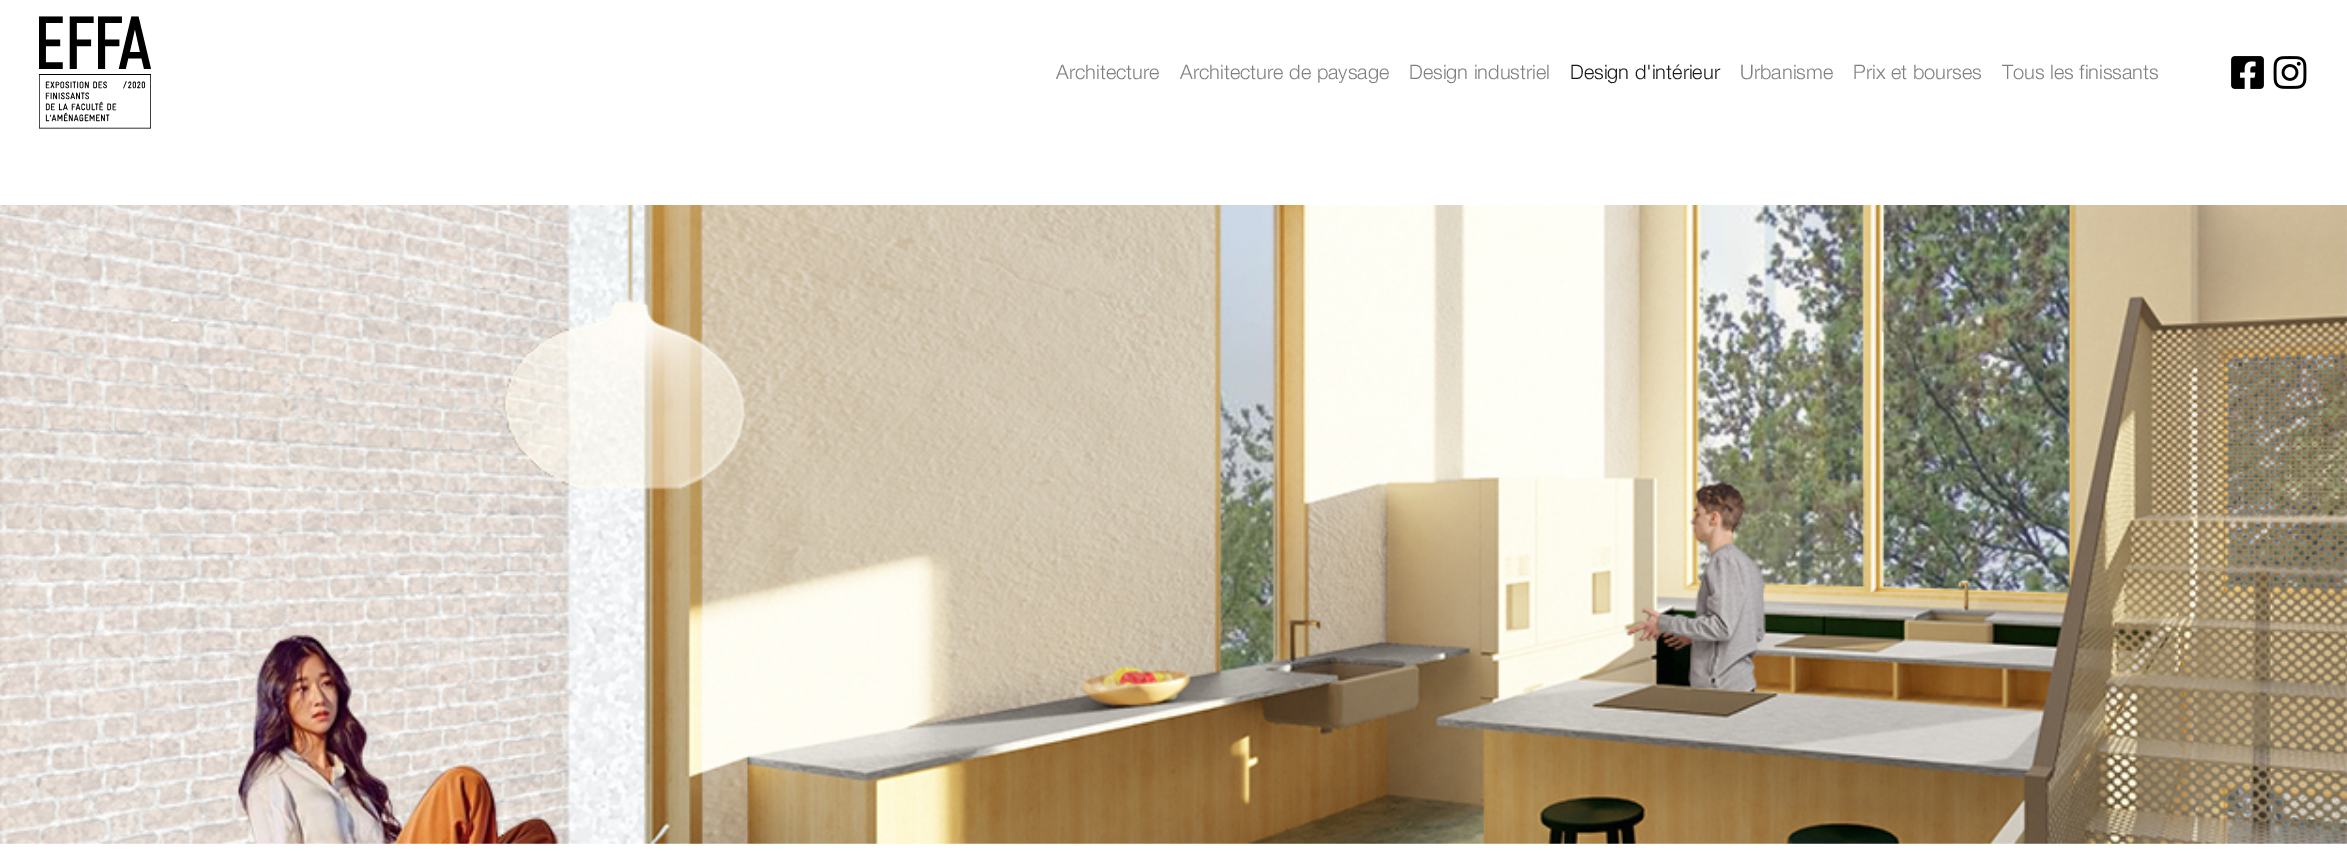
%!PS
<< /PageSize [2347 851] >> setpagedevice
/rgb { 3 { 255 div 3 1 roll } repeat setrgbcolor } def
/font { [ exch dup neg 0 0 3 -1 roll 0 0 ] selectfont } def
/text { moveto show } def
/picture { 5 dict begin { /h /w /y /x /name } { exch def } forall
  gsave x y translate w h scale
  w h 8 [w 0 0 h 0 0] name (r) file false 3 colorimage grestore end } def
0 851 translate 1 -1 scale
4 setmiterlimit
255 255 255 rgb
0 0 2347 851 rectfill
(img_01.rgb) 39 16 112 113 picture
(img_02.rgb) 2231 56 33 33 picture
(img_03.rgb) 2273 56 34 33 picture
(img_04.rgb) 0 205 2347 639 picture
/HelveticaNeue-Light 20 font
128 128 128 rgb
(Architecture) 1056 79 text
(Architecture de paysage) 1180 79 text
(Design industriel) 1409 79 text
26 26 26 rgb
(Design d'intérieur) 1570 79 text
128 128 128 rgb
(Urbanisme) 1740 79 text
(Prix et bourses) 1853 79 text
(Tous les finissants) 2002 79 text
showpage
